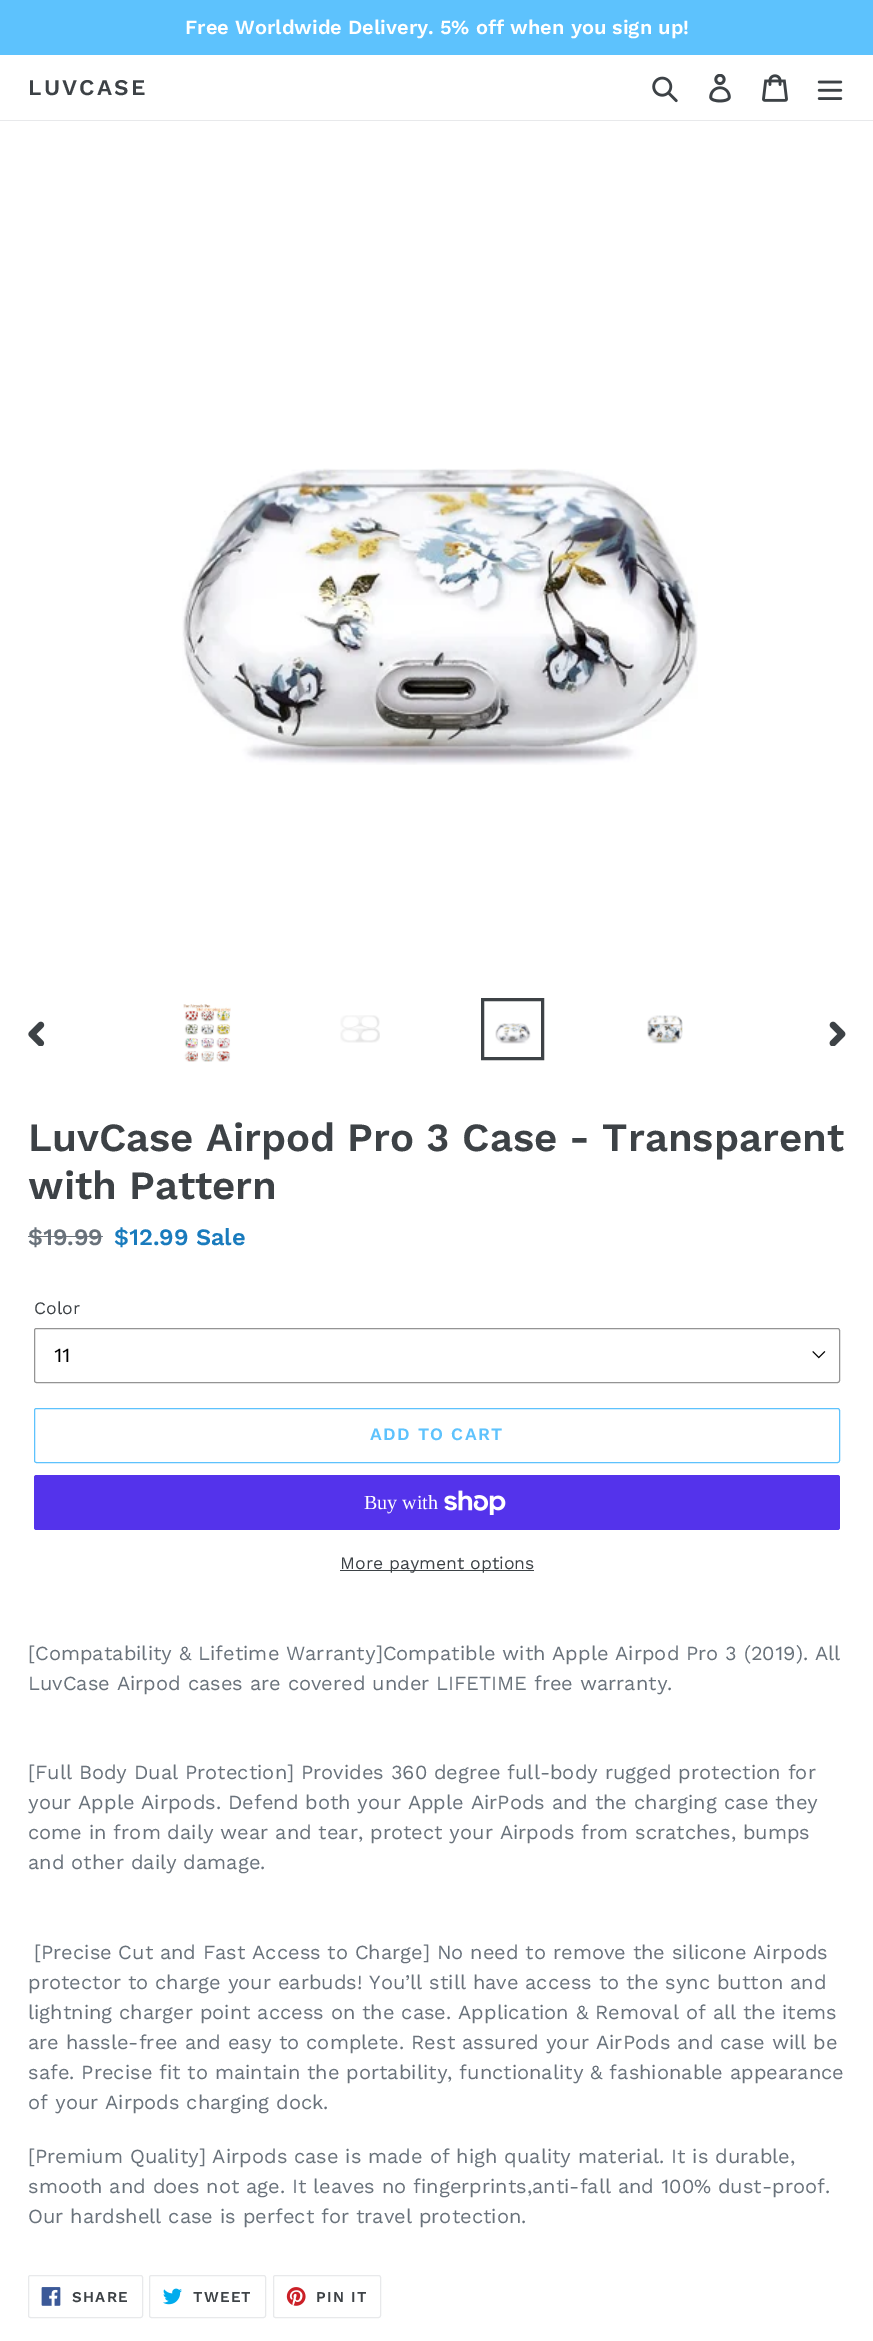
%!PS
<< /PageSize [873 2341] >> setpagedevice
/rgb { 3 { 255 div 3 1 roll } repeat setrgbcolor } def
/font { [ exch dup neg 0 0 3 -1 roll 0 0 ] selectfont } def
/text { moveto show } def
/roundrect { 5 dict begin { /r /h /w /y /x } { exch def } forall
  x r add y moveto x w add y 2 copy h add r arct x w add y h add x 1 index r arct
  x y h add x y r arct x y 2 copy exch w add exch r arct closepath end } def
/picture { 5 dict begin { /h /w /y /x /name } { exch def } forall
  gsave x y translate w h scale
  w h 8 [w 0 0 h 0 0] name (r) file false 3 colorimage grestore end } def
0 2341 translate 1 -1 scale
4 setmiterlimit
255 255 255 rgb
0 0 873 2341 rectfill
93 194 253 rgb
0 0 873 55 rectfill
232 233 235 rgb
0 120 873 1 rectfill
(img_01.rgb) 652 76 26 27 picture
(img_02.rgb) 709 74 22 29 picture
(img_03.rgb) 762 74 26 28 picture
(img_04.rgb) 817 80 26 20 picture
(img_05.rgb) 182 468 516 297 picture
(img_06.rgb) 28 1021 17 25 picture
(img_07.rgb) 183 1004 48 58 picture
(img_08.rgb) 340 1015 40 28 picture
61 66 70 rgb
3 setlinewidth
482.5 999.5 60 59 rectstroke
(img_09.rgb) 495 1023 36 21 picture
(img_10.rgb) 647 1015 36 29 picture
(img_11.rgb) 829 1021 17 25 picture
105 114 123 rgb
28 1236 75 1 rectfill
(img_12.rgb) 812 1351 14 8 picture
148 148 148 rgb
1 setlinewidth
34.5 1328.5 805 54 2 roundrect stroke
93 194 253 rgb
34.5 1408.5 805 54 2 roundrect stroke
84 51 235 rgb
34 1475 806 55 2.5 roundrect fill
(img_13.rgb) 444 1490 62 25 picture
61 66 70 rgb
340 1570 194 1 rectfill
232 233 235 rgb
28.5 2275.5 114 42 2 roundrect stroke
(img_14.rgb) 41 2287 20 19 picture
149.5 2275.5 116 42 2 roundrect stroke
(img_15.rgb) 163 2288 19 17 picture
273.5 2275.5 107 42 2 roundrect stroke
(img_16.rgb) 286 2287 20 19 picture
/WorkSans-SemiBold 20 font
255 255 255 rgb
(Free Worldwide Delivery. 5% off when you sign up!) 185 34 text
/WorkSans-SemiBold 22.5 font
61 66 70 rgb
28 95 moveto 2.25 0 (LUVCASE) ashow
/WorkSans-SemiBold 40 font
(LuvCase Airpod Pro 3 Case - Transparent) 28 1151 text
(with Pattern) 28 1199 text
/WorkSans-SemiBold 23.5 font
105 114 123 rgb
($19.99) 28 1245 text
25 123 189 rgb
($12.99 Sale) 114 1245 text
/WorkSans-Regular 17.5 font
61 66 70 rgb
(Color) 34 1314 text
/WorkSans-Regular 20 font
0 0 0 rgb
(11) 54 1362 text
/WorkSans-SemiBold 17.5 font
93 194 253 rgb
370 1440 moveto 1.4 0 (ADD TO CART) ashow
/LiberationSerif-Regular 20 font
255 255 255 rgb
(Buy with) 364 1509 text
/WorkSans-Regular 17.5 font
61 66 70 rgb
(More payment options) 340 1569 text
/WorkSans-Regular 20 font
105 114 123 rgb
([Compatability & Lifetime Warranty]Compatible with Apple Airpod Pro 3 \(2019\). All) 28 1660 text
(LuvCase Airpod cases are covered under LIFETIME free warranty.) 28 1690 text
([Full Body Dual Protection] Provides 360 degree full-body rugged protection for) 28 1779 text
(your Apple Airpods. Defend both your Apple AirPods and the charging case they) 28 1809 text
(come in from daily wear and tear, protect your Airpods from scratches, bumps) 28 1839 text
(and other daily damage.) 28 1869 text
([Precise Cut and Fast Access to Charge] No need to remove the silicone Airpods) 34 1959 text
(protector to charge your earbuds! You’ll still have access to the sync button and) 28 1989 text
(lightning charger point access on the case. Application & Removal of all the items) 28 2019 text
(are hassle-free and easy to complete. Rest assured your AirPods and case will be) 28 2049 text
(safe. Precise fit to maintain the portability, functionality & fashionable appearance) 28 2079 text
(of your Airpods charging dock.) 28 2109 text
([Premium Quality] Airpods case is made of high quality material. It is durable,) 28 2163 text
(smooth and does not age. It leaves no fingerprints,anti-fall and 100% dust-proof.) 28 2193 text
(Our hardshell case is perfect for travel protection.) 28 2223 text
/WorkSans-SemiBold 15 font
61 66 70 rgb
72 2302 moveto 1.25 0 (SHARE) ashow
193 2302 moveto 1.25 0 (TWEET) ashow
316 2302 moveto 1.25 0 (PIN IT) ashow
showpage
